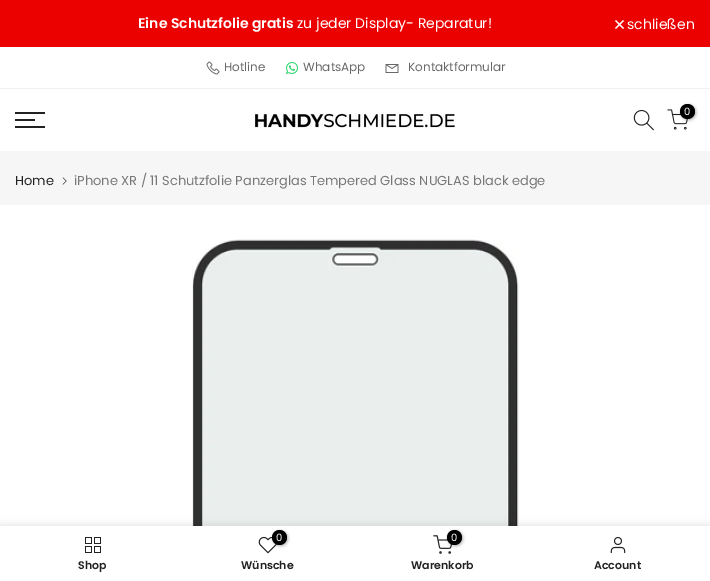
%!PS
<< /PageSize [710 581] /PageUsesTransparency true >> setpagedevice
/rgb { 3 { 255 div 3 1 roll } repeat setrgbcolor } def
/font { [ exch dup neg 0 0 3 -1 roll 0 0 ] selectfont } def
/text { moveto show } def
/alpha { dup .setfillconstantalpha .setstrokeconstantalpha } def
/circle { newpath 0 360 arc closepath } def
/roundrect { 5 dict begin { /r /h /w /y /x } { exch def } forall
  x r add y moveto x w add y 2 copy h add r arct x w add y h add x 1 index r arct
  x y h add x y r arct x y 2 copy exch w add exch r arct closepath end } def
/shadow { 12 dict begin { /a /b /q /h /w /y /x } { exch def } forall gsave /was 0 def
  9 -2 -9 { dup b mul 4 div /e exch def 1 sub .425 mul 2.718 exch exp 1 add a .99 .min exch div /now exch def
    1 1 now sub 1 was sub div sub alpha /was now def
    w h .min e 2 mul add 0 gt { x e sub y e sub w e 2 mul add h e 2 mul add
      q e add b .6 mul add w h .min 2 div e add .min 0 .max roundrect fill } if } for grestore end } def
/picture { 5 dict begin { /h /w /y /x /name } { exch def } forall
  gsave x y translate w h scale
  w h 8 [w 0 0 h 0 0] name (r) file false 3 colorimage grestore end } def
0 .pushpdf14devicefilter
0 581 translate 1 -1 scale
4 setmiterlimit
255 255 255 rgb
0 0 710 581 rectfill
236 1 1 rgb
0 0 710 47 rectfill
255 255 255 rgb
1.1 setlinewidth
623.5 20.5 moveto -8 8 rlineto 623.5 28.5 moveto -8 -8 rlineto stroke
241 241 241 rgb
0 88 710 1 rectfill
(img_01.rgb) 206 61 14 14 picture
(img_02.rgb) 286 62 12 12 picture
(img_03.rgb) 385 64 14 9 picture
(img_04.rgb) 633 109 21 22 picture
(img_05.rgb) 667 109 21 21 picture
0 0 0 rgb
681 105 15 15 7.5 1.5 0.3 shadow
687.5 111.5 7.5 circle fill
34 34 34 rgb
15 112 30 2 rectfill
15 119 20 2 rectfill
15 126 30 2 rectfill
(img_06.rgb) 255 113 200 16 picture
246 246 246 rgb
0 151 710 54 rectfill
(img_07.rgb) 62 177 5 8 picture
(img_08.rgb) 192 239 327 287 picture
0 0 0 rgb
0 526 710 55 0 4.5 0.12 shadow
255 255 255 rgb
0 526 710 55 rectfill
(img_09.rgb) 85 537 16 16 picture
(img_10.rgb) 258 536 19 18 picture
0 0 0 rgb
273 531 15 15 7.5 1.5 0.3 shadow
279.5 537.5 7.5 circle fill
(img_11.rgb) 433 535 19 19 picture
448 531 15 15 7.5 1.5 0.3 shadow
454.5 537.5 7.5 circle fill
(img_12.rgb) 610 536 16 18 picture
/Poppins-SemiBold 14 font
255 255 255 rgb
(Eine Schutzfolie gratis) 138 28 text
/Poppins-Regular 14 font
(zu jeder Display- Reparatur!) 297 28 text
(schließen) 627 29 text
/Poppins-Regular 12 font
104 104 104 rgb
(Hotline) 224 71 text
(WhatsApp) 303 71 text
(Kontaktformular) 408 71 text
/Poppins-Regular 10 font
255 255 255 rgb
(0) 684 115 text
/Poppins-Regular 13 font
34 34 34 rgb
(Home) 15 185 text
119 119 119 rgb
(iPhone XR / 11 Schutzfolie Panzerglas Tempered Glass NUGLAS black edge) 74 185 text
/Poppins-SemiBold 11 font
34 34 34 rgb
(Shop) 78 569 text
/Poppins-Regular 10 font
255 255 255 rgb
(0) 276 541 text
/Poppins-SemiBold 11 font
34 34 34 rgb
(Wünsche) 241 569 text
/Poppins-Regular 10 font
255 255 255 rgb
(0) 451 541 text
/Poppins-SemiBold 11 font
34 34 34 rgb
(Warenkorb) 411 569 text
(Account) 594 569 text
.poppdf14devicefilter showpage
